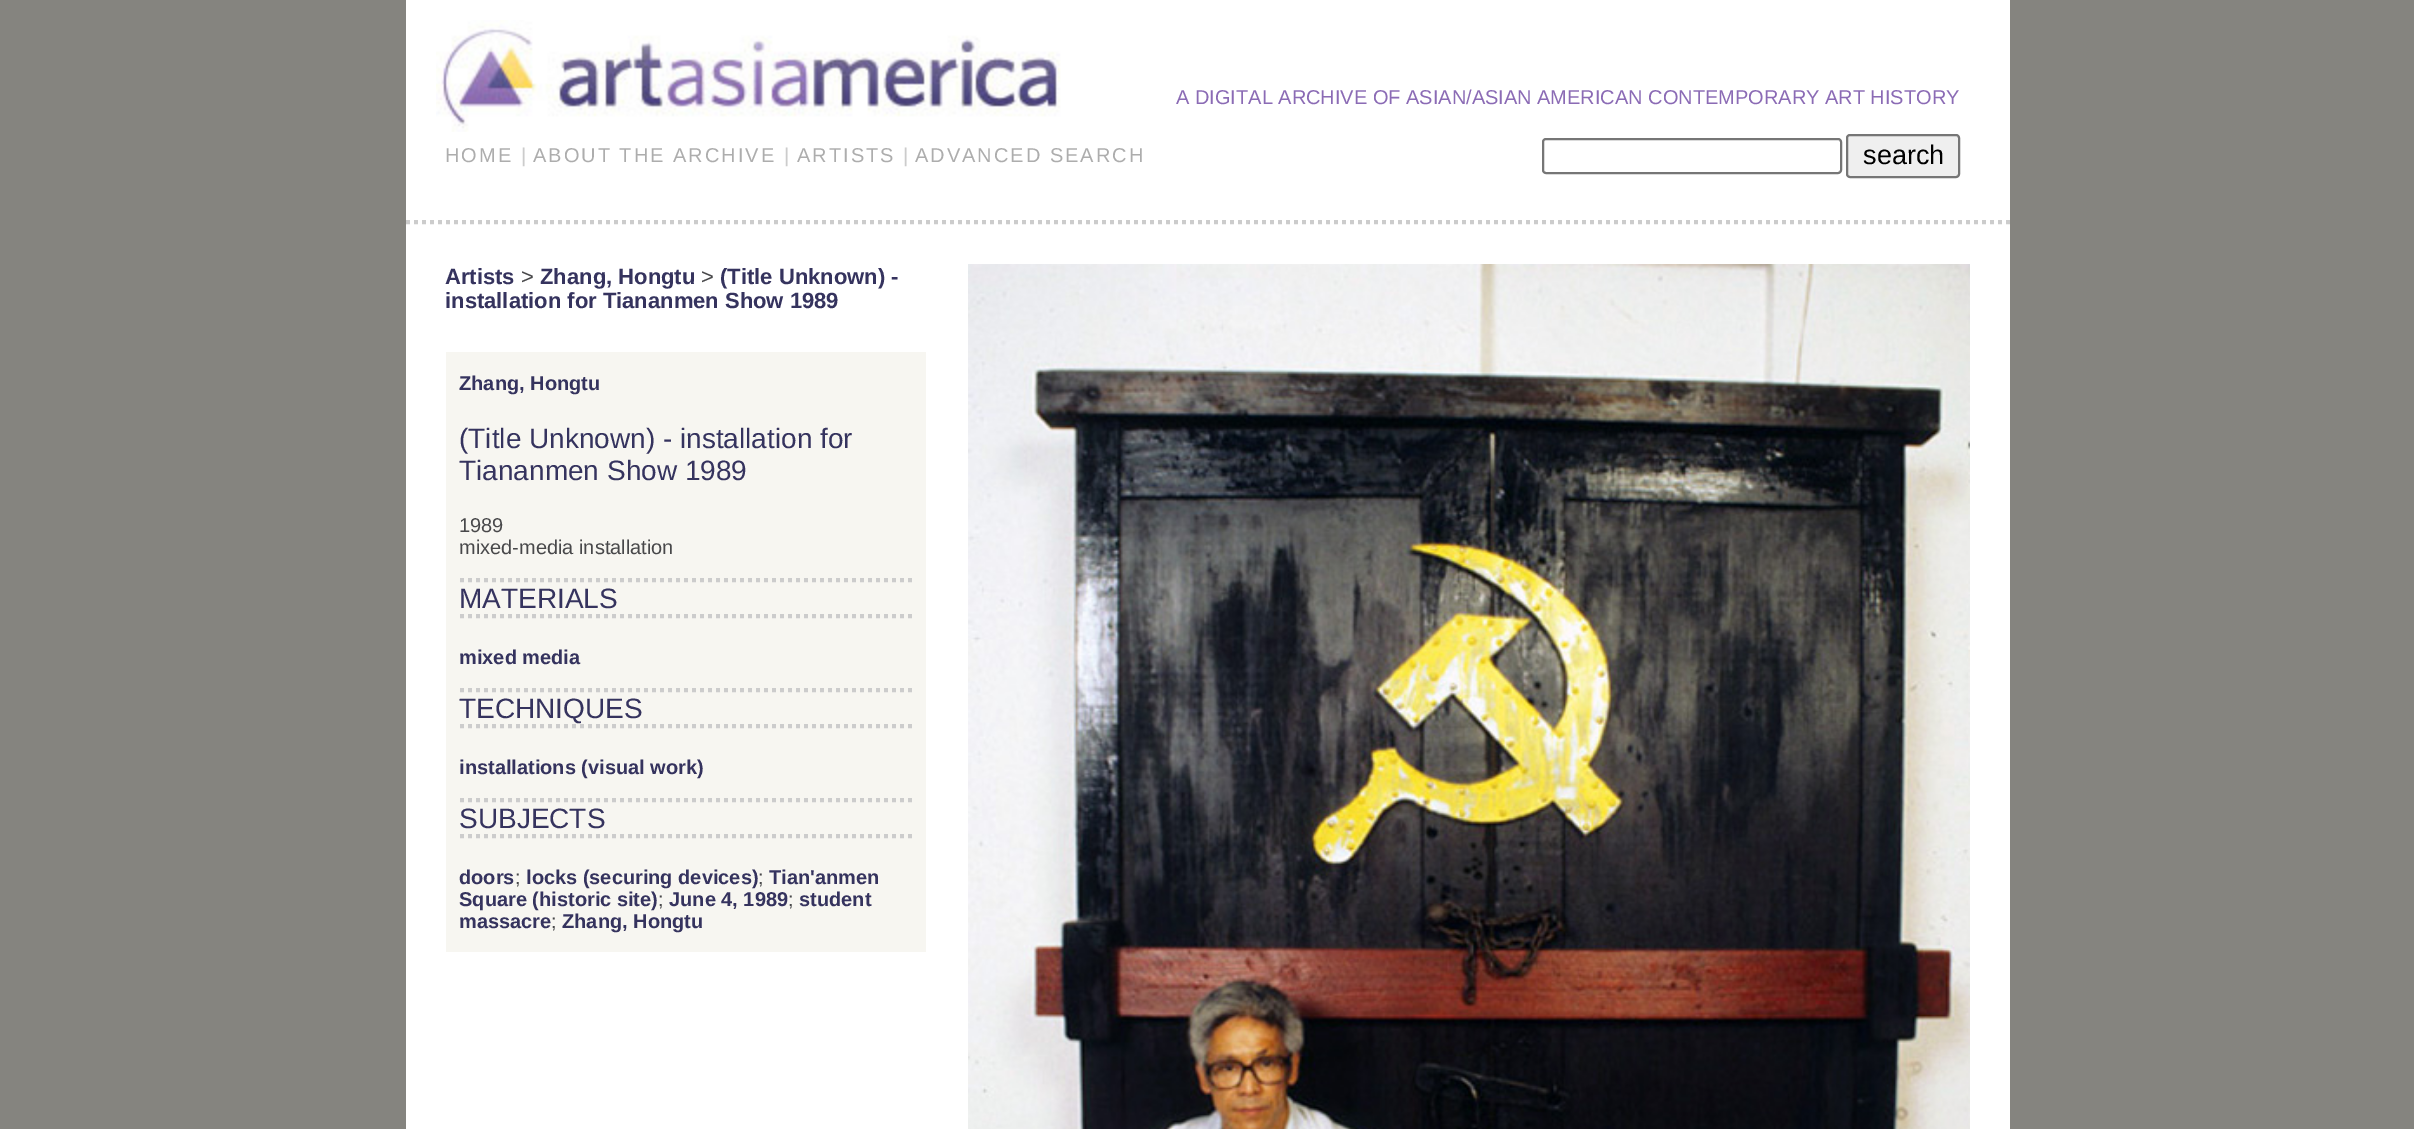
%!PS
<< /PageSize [2414 1129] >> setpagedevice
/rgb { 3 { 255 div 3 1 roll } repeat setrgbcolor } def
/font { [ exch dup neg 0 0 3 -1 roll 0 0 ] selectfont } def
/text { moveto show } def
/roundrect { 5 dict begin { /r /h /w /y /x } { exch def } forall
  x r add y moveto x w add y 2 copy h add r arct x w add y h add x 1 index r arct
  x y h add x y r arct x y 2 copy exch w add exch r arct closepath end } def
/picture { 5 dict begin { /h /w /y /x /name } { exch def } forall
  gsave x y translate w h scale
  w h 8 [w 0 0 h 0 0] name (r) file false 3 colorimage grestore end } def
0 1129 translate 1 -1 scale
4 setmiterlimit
133 132 127 rgb
0 0 2414 1129 rectfill
255 255 255 rgb
406 0 1604 1129 rectfill
(img_01.rgb) 436 20 625 112 picture
118 118 118 rgb
2 setlinewidth
1543 139 298 34 3 roundrect stroke
239 239 239 rgb
1847 135 112 42 3 roundrect gsave fill grestore
118 118 118 rgb
stroke
204 204 204 rgb
4 setlinewidth
[4 4] 0 setdash
406 222 moveto 1604 0 rlineto stroke
247 246 241 rgb
446 352 480 600 rectfill
204 204 204 rgb
460 580 moveto 452 0 rlineto stroke
460 616 moveto 452 0 rlineto stroke
460 690 moveto 452 0 rlineto stroke
460 726 moveto 452 0 rlineto stroke
460 800 moveto 452 0 rlineto stroke
460 836 moveto 452 0 rlineto stroke
(img_02.rgb) 968 264 1002 865 picture
/LiberationSans-Regular 20 font
139 107 181 rgb
(A DIGITAL ARCHIVE OF ASIAN/ASIAN AMERICAN CONTEMPORARY ART HISTORY) 1176 104 text
173 173 173 rgb
445 162 moveto 2 0 (HOME) ashow
204 204 204 rgb
521 162 moveto 2 0 (|) ashow
173 173 173 rgb
533 162 moveto 2 0 (ABOUT THE ARCHIVE) ashow
204 204 204 rgb
784 162 moveto 2 0 (|) ashow
173 173 173 rgb
797 162 moveto 2 0 (ARTISTS) ashow
204 204 204 rgb
903 162 moveto 2 0 (|) ashow
173 173 173 rgb
915 162 moveto 2 0 (ADVANCED SEARCH) ashow
/LiberationSans-Regular 27 font
0 0 0 rgb
(search) 1863 164 text
/LiberationSans-Bold 22 font
53 51 94 rgb
(Artists) 445 284 text
/LiberationSans-Regular 22 font
72 72 74 rgb
(>) 521 284 text
/LiberationSans-Bold 22 font
53 51 94 rgb
(Zhang, Hongtu) 540 284 text
/LiberationSans-Regular 22 font
72 72 74 rgb
(>) 701 284 text
/LiberationSans-Bold 22 font
53 51 94 rgb
(\(Title Unknown\) -) 720 284 text
(installation for Tiananmen Show 1989) 445 308 text
/LiberationSans-Bold 20 font
(Zhang, Hongtu) 459 390 text
/LiberationSans-Regular 28 font
(\(Title Unknown\) - installation for) 459 448 text
(Tiananmen Show 1989) 459 480 text
/LiberationSans-Regular 20 font
72 72 74 rgb
(1989) 459 532 text
(mixed-media installation) 459 554 text
/LiberationSans-Regular 28 font
53 51 94 rgb
(MATERIALS) 459 608 text
/LiberationSans-Bold 20 font
(mixed media) 459 664 text
/LiberationSans-Regular 28 font
(TECHNIQUES) 459 718 text
/LiberationSans-Bold 20 font
(installations \(visual work\)) 459 774 text
/LiberationSans-Regular 28 font
(SUBJECTS) 459 828 text
/LiberationSans-Bold 20 font
(doors) 459 884 text
/LiberationSans-Regular 20 font
72 72 74 rgb
(;) 515 884 text
/LiberationSans-Bold 20 font
53 51 94 rgb
(locks \(securing devices\)) 526 884 text
/LiberationSans-Regular 20 font
72 72 74 rgb
(;) 758 884 text
/LiberationSans-Bold 20 font
53 51 94 rgb
(Tian'anmen) 769 884 text
(Square \(historic site\)) 459 906 text
/LiberationSans-Regular 20 font
72 72 74 rgb
(;) 658 906 text
/LiberationSans-Bold 20 font
53 51 94 rgb
(June 4, 1989) 669 906 text
/LiberationSans-Regular 20 font
72 72 74 rgb
(;) 788 906 text
/LiberationSans-Bold 20 font
53 51 94 rgb
(student) 799 906 text
(massacre) 459 928 text
/LiberationSans-Regular 20 font
72 72 74 rgb
(;) 551 928 text
/LiberationSans-Bold 20 font
53 51 94 rgb
(Zhang, Hongtu) 562 928 text
showpage
